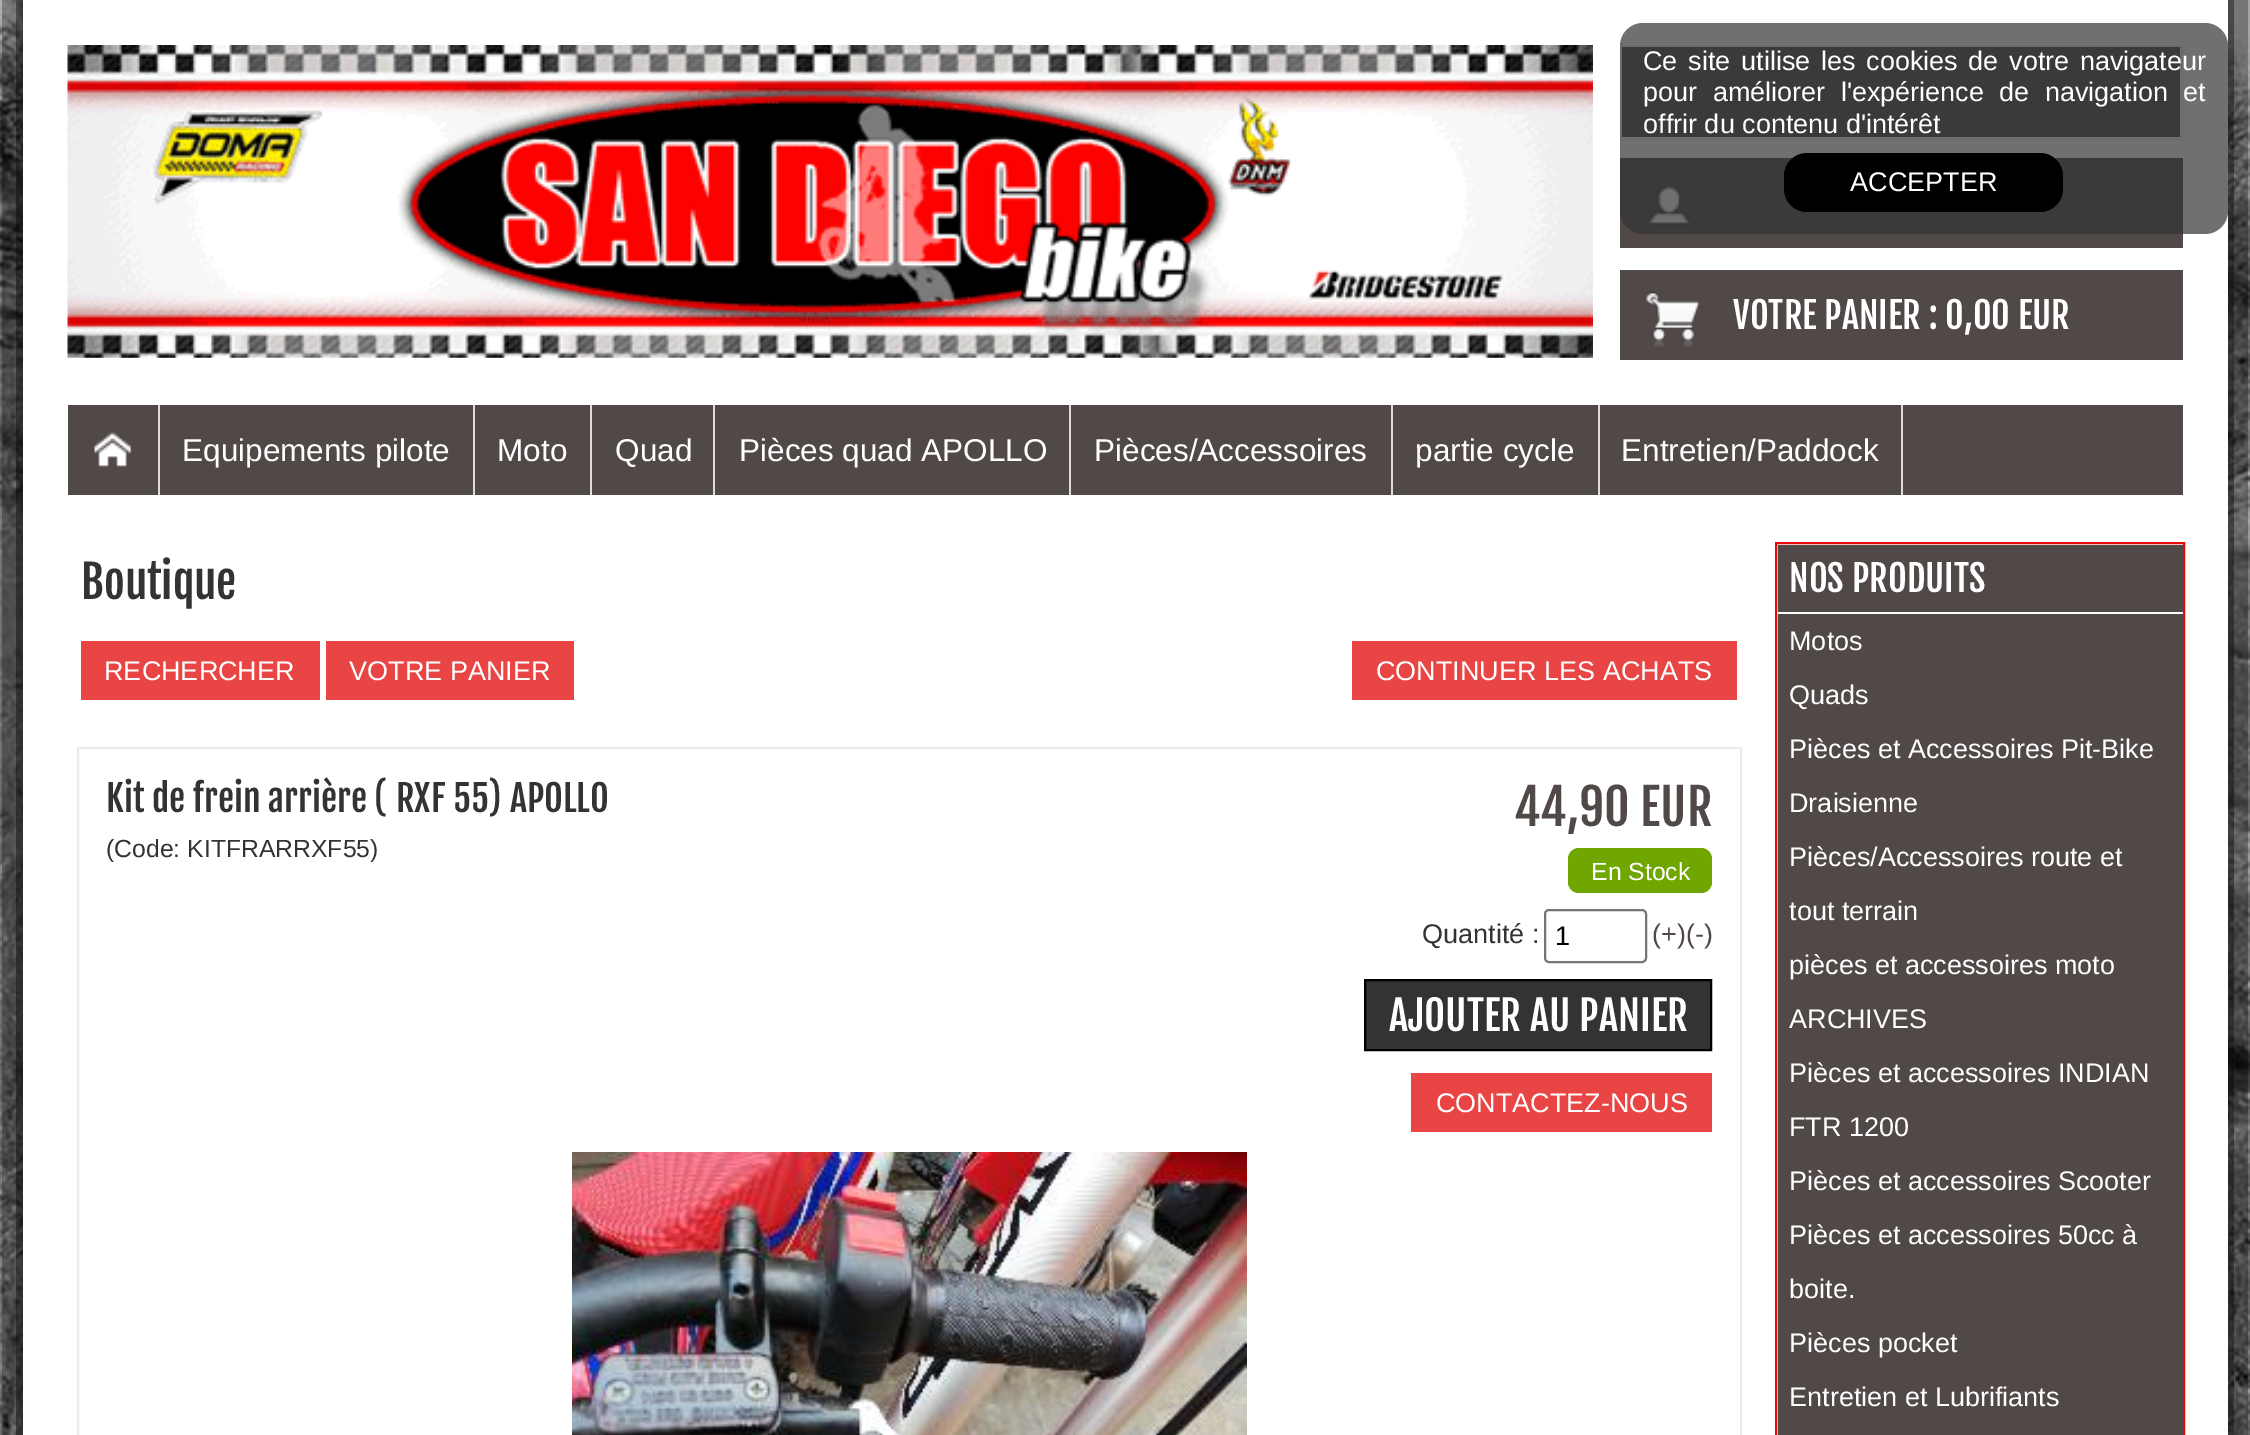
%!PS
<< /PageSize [2250 1435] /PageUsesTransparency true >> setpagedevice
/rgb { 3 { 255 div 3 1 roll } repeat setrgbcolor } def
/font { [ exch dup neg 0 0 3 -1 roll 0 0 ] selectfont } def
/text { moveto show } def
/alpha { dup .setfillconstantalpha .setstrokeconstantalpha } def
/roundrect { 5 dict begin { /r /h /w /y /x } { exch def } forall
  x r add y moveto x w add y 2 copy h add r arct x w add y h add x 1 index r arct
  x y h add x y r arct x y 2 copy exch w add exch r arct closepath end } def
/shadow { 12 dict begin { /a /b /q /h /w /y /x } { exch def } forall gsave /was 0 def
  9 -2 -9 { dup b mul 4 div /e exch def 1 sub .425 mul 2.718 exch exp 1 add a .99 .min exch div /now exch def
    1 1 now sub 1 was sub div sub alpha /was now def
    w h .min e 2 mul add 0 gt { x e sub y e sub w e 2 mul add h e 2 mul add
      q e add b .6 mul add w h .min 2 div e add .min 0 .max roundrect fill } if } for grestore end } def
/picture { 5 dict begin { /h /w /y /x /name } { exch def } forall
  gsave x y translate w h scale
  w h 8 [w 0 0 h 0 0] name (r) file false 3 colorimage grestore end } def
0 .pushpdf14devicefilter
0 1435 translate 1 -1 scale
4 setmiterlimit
255 255 255 rgb
0 0 2250 1435 rectfill
(img_01.rgb) 0 0 2250 1435 picture
0 0 0 rgb
9 -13 2232 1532 0 28 1 shadow
255 255 255 rgb
23 0 2205 1435 rectfill
238 238 238 rgb
2 setlinewidth
1621 46 561 93 rectstroke
81 72 72 rgb
1622 47 558 90 rectfill
1620 158 563 90 rectfill
(img_03.rgb) 1648 184 42 43 picture
0.7 alpha
51 51 51 rgb
1620 23 608 211 23 roundrect fill
1 alpha
0 0 0 rgb
1784 153 279 59 23 roundrect fill
(img_02.rgb) 67 45 1526 313 picture
81 72 72 rgb
1620 270 563 90 rectfill
(img_04.rgb) 1644 291 56 56 picture
68 405 90 90 rectfill
(img_05.rgb) 94 431 38 36 picture
160 405 2023 90 rectfill
221 221 221 rgb
158 405 2 90 rectfill
473 405 2 90 rectfill
590 405 2 90 rectfill
713 405 2 90 rectfill
1069 405 2 90 rectfill
1391 405 2 90 rectfill
1598 405 2 90 rectfill
1901 405 2 90 rectfill
233 69 68 rgb
81 641 239 59 rectfill
326 641 248 59 rectfill
1352 641 385 59 rectfill
235 235 235 rgb
78 748 1663 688 rectstroke
111 166 0 rgb
1568 848 144 45 11 roundrect fill
118 118 118 rgb
1545 910 101 52 4 roundrect stroke
51 51 51 rgb
1365 980 moveto 346 0 rlineto 0 70 rlineto -346 0 rlineto closepath gsave fill grestore
0 0 0 rgb
stroke
233 69 68 rgb
1411 1073 301 59 rectfill
(img_06.rgb) 572 1152 675 283 picture
231 8 8 rgb
1776 543 408 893 rectstroke
81 72 72 rgb
1778 545 405 67 rectfill
1778 614 405 821 rectfill
/LiberationSans-Regular 27 font
255 255 255 rgb
1643 70 moveto 3.25 0 32 (Ce site utilise les cookies de votre navigateur) widthshow
1643 101 moveto 8 0 32 (pour améliorer l'expérience de navigation et) widthshow
(offrir du contenu d'intérêt) 1643 133 text
(ACCEPTER) 1850 191 text
/FjallaOne-Regular 36 font
(VOTRE PANIER : 0,00 EUR) 1733 329 text
/LiberationSans-Regular 31.5 font
(Equipements pilote) 182 461 text
(Moto) 497 461 text
(Quad) 615 461 text
(Pièces quad APOLLO) 739 461 text
(Pièces/Accessoires) 1094 461 text
(partie cycle) 1415 461 text
(Entretien/Paddock) 1621 461 text
/FjallaOne-Regular 45 font
51 51 51 rgb
(Boutique) 81 599 text
/LiberationSans-Regular 27 font
255 255 255 rgb
(RECHERCHER) 104 680 text
(VOTRE PANIER) 349 680 text
(CONTINUER LES ACHATS) 1376 680 text
/FjallaOne-Regular 36 font
51 51 51 rgb
(Kit de frein arrière \( RXF 55\) APOLLO) 106 812 text
/LiberationSans-Regular 24.75 font
(\(Code: KITFRARRXF55\)) 106 857 text
/FjallaOne-Regular 49.5 font
81 72 72 rgb
(44,90 EUR) 1514 826 text
/LiberationSans-Regular 24.75 font
255 255 255 rgb
(En Stock) 1591 880 text
/LiberationSans-Regular 27 font
51 51 51 rgb
(Quantité :) 1422 943 text
0 0 0 rgb
(1) 1555 945 text
81 72 72 rgb
(\(+\)\(-\)) 1652 943 text
/FjallaOne-Regular 40.5 font
255 255 255 rgb
(AJOUTER AU PANIER) 1389 1031 text
/LiberationSans-Regular 27 font
(CONTACTEZ-NOUS) 1436 1112 text
/FjallaOne-Regular 36 font
(NOS PRODUITS) 1789 592 text
/LiberationSans-Regular 27 font
(Motos) 1789 650 text
(Quads) 1789 704 text
(Pièces et Accessoires Pit-Bike) 1789 758 text
(Draisienne) 1789 812 text
(Pièces/Accessoires route et) 1789 866 text
(tout terrain) 1789 920 text
(pièces et accessoires moto) 1789 974 text
(ARCHIVES) 1789 1028 text
(Pièces et accessoires INDIAN) 1789 1082 text
(FTR 1200) 1789 1136 text
(Pièces et accessoires Scooter) 1789 1190 text
(Pièces et accessoires 50cc à) 1789 1244 text
(boite.) 1789 1298 text
(Pièces pocket) 1789 1352 text
(Entretien et Lubrifiants) 1789 1406 text
.poppdf14devicefilter showpage
